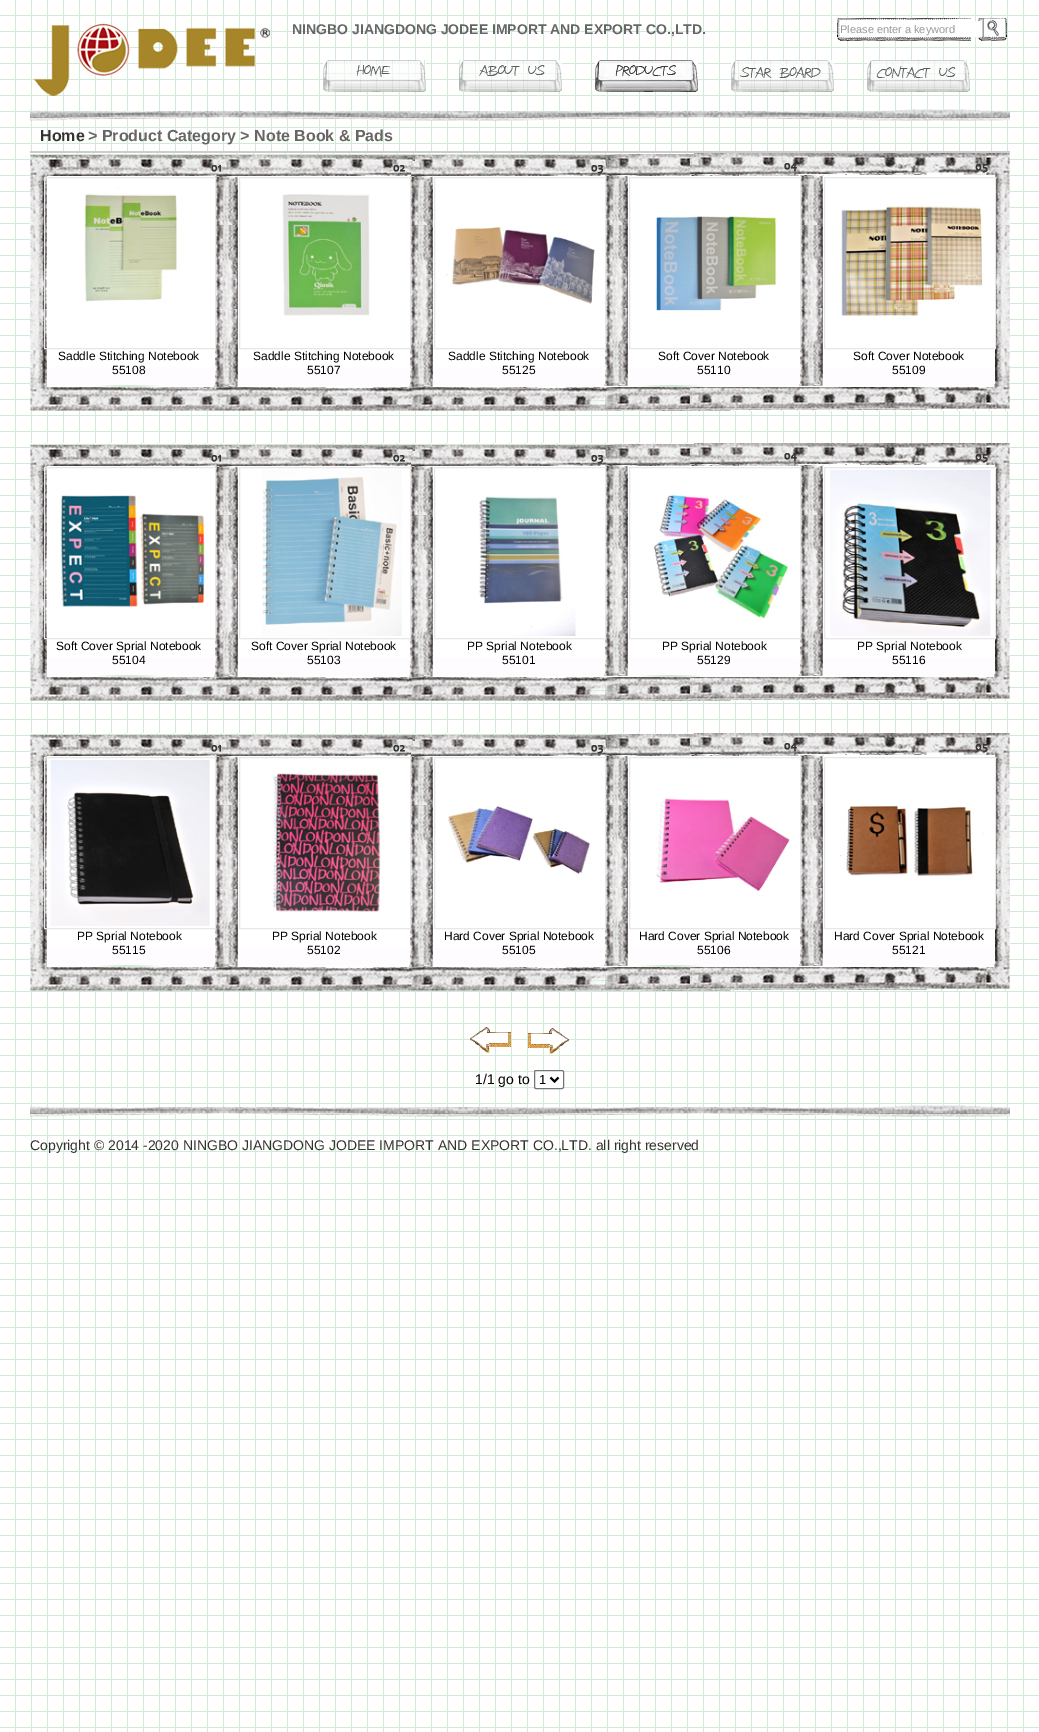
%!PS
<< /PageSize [1039 1732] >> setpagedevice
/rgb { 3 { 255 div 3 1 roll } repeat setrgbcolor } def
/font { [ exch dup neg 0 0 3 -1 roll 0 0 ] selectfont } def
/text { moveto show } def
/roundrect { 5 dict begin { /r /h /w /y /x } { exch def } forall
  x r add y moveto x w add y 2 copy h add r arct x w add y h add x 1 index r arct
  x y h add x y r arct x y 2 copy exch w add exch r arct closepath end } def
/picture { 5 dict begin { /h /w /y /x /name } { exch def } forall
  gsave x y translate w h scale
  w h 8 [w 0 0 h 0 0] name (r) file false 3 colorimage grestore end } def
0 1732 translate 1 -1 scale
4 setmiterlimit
255 255 255 rgb
0 0 1039 1732 rectfill
(img_01.rgb) 0 0 1039 1732 picture
(img_02.rgb) 34 22 236 74 picture
(img_03.rgb) 837 18 145 23 picture
841 21 140 16 rectfill
(img_04.rgb) 982 18 25 23 picture
(img_05.rgb) 323 60 103 32 picture
(img_06.rgb) 459 60 103 32 picture
(img_07.rgb) 595 60 103 32 picture
(img_08.rgb) 731 60 103 32 picture
(img_09.rgb) 867 60 103 32 picture
(img_10.rgb) 30 108 980 13 picture
204 204 204 rgb
30 151 980 2 rectfill
(img_11.rgb) 30 153 980 838 picture
230 231 231 rgb
44.5 177.5 171 171 rectstroke
(img_12.rgb) 84 186 93 116 picture
239.5 177.5 171 171 rectstroke
(img_13.rgb) 282 194 88 122 picture
434.5 177.5 171 171 rectstroke
(img_14.rgb) 446 227 149 77 picture
629.5 177.5 171 171 rectstroke
(img_15.rgb) 656 216 120 95 picture
824.5 177.5 171 171 rectstroke
(img_16.rgb) 841 206 152 117 picture
44.5 467.5 171 171 rectstroke
(img_17.rgb) 60 495 145 112 picture
239.5 467.5 171 171 rectstroke
(img_18.rgb) 262 470 140 166 picture
434.5 467.5 171 171 rectstroke
(img_19.rgb) 479 476 97 160 picture
629.5 467.5 171 171 rectstroke
(img_20.rgb) 654 494 134 125 picture
824.5 467.5 171 171 rectstroke
(img_21.rgb) 830 470 161 166 picture
44.5 757.5 171 171 rectstroke
(img_22.rgb) 50 760 160 166 picture
239.5 757.5 171 171 rectstroke
(img_23.rgb) 273 773 108 139 picture
434.5 757.5 171 171 rectstroke
(img_24.rgb) 448 806 142 68 picture
629.5 757.5 171 171 rectstroke
(img_25.rgb) 656 798 134 93 picture
824.5 757.5 171 171 rectstroke
(img_26.rgb) 840 805 144 72 picture
(img_27.rgb) 470 1027 41 26 picture
(img_28.rgb) 527 1028 42 26 picture
255 255 255 rgb
534.5 1070.5 29 18 1.5 roundrect gsave fill grestore
118 118 118 rgb
stroke
0 0 0 rgb
2 setlinewidth
550.5 1077.5 moveto 4 4 rlineto 4 -4 rlineto stroke
(img_29.rgb) 30 1104 980 13 picture
/LiberationSans-Bold 14 font
102 102 102 rgb
(NINGBO JIANGDONG JODEE IMPORT AND EXPORT CO.,LTD.) 292 34 text
/LiberationSans-Regular 11 font
153 153 153 rgb
(Please enter a keyword) 840 33 text
/LiberationSans-Bold 16 font
51 51 51 rgb
(Home) 40 141 text
102 102 102 rgb
(> Product Category > Note Book & Pads) 88 141 text
/LiberationSans-Regular 12 font
0 0 0 rgb
(Saddle Stitching Notebook) 58 360 text
(55108) 112 374 text
(Saddle Stitching Notebook) 253 360 text
(55107) 307 374 text
(Saddle Stitching Notebook) 448 360 text
(55125) 502 374 text
(Soft Cover Notebook) 658 360 text
(55110) 697 374 text
(Soft Cover Notebook) 853 360 text
(55109) 892 374 text
(Soft Cover Sprial Notebook) 56 650 text
(55104) 112 664 text
(Soft Cover Sprial Notebook) 251 650 text
(55103) 307 664 text
(PP Sprial Notebook) 467 650 text
(55101) 502 664 text
(PP Sprial Notebook) 662 650 text
(55129) 697 664 text
(PP Sprial Notebook) 857 650 text
(55116) 892 664 text
(PP Sprial Notebook) 77 940 text
(55115) 112 954 text
(PP Sprial Notebook) 272 940 text
(55102) 307 954 text
(Hard Cover Sprial Notebook) 444 940 text
(55105) 502 954 text
(Hard Cover Sprial Notebook) 639 940 text
(55106) 697 954 text
(Hard Cover Sprial Notebook) 834 940 text
(55121) 892 954 text
/LiberationSans-Regular 14 font
(1/1 go to) 475 1084 text
/LiberationSans-Regular 13 font
(1) 539 1084 text
/LiberationSans-Regular 14 font
51 51 51 rgb
(Copyright © 2014 -2020 NINGBO JIANGDONG JODEE IMPORT AND EXPORT CO.,LTD. all right reserved) 30 1150 text
showpage
